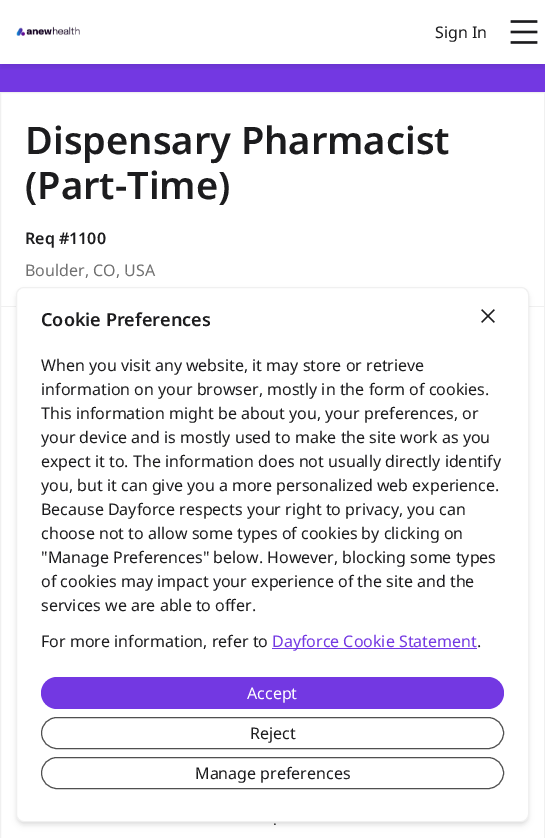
%!PS
<< /PageSize [545 838] /PageUsesTransparency true >> setpagedevice
/rgb { 3 { 255 div 3 1 roll } repeat setrgbcolor } def
/font { [ exch dup neg 0 0 3 -1 roll 0 0 ] selectfont } def
/text { moveto show } def
/alpha { dup .setfillconstantalpha .setstrokeconstantalpha } def
/roundrect { 5 dict begin { /r /h /w /y /x } { exch def } forall
  x r add y moveto x w add y 2 copy h add r arct x w add y h add x 1 index r arct
  x y h add x y r arct x y 2 copy exch w add exch r arct closepath end } def
/shadow { 12 dict begin { /a /b /q /h /w /y /x } { exch def } forall gsave /was 0 def
  9 -2 -9 { dup b mul 4 div /e exch def 1 sub .425 mul 2.718 exch exp 1 add a .99 .min exch div /now exch def
    1 1 now sub 1 was sub div sub alpha /was now def
    w h .min e 2 mul add 0 gt { x e sub y e sub w e 2 mul add h e 2 mul add
      q e add b .6 mul add w h .min 2 div e add .min 0 .max roundrect fill } if } for grestore end } def
/picture { 5 dict begin { /h /w /y /x /name } { exch def } forall
  gsave x y translate w h scale
  w h 8 [w 0 0 h 0 0] name (r) file false 3 colorimage grestore end } def
0 .pushpdf14devicefilter
0 838 translate 1 -1 scale
4 setmiterlimit
255 255 255 rgb
0 0 545 838 rectfill
115 56 226 rgb
0 64 545 28 rectfill
gsave
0 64 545 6 rectclip
0 0 0 rgb
1 5 543 62 0 3 0.1 shadow
grestore
(img_01.rgb) 16 26 64 10 picture
(img_02.rgb) 510 20 28 24 picture
240 240 240 rgb
0.5 92.5 544 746 rectstroke
1 306 543 1 rectfill
0 0 0 rgb
18 291 509 531 6 2 0.1 shadow
17 292 511 533 7 3 0.1 shadow
255 255 255 rgb
16.5 287.5 512 534 7.5 roundrect gsave fill grestore
240 240 240 rgb
stroke
(img_03.rgb) 481 309 14 14 picture
115 56 226 rgb
272 648 205 1 rectfill
41 677 463 32 16 roundrect fill
80 80 80 rgb
41.5 717.5 462 31 15.5 roundrect stroke
41.5 757.5 462 31 15.5 roundrect stroke
/NotoSans-Regular 16 font
28 28 30 rgb
(Sign In) 435 38 text
/NotoSans-SemiBold 38 font
(Dispensary Pharmacist) 25 154 text
(\(Part-Time\)) 25 199 text
/NotoSans-SemiBold 16 font
(Req #1100) 25 244 text
/NotoSans-Regular 16 font
112 112 112 rgb
(Boulder, CO, USA) 25 276 text
/LiberationSans-Regular 13 font
0 0 0 rgb
(.) 273 825 text
/NotoSans-SemiBold 18 font
28 28 30 rgb
(Cookie Preferences) 41 326 text
/NotoSans-Regular 16 font
(When you visit any website, it may store or retrieve) 41 371 text
(information on your browser, mostly in the form of cookies.) 41 395 text
(This information might be about you, your preferences, or) 41 419 text
(your device and is mostly used to make the site work as you) 41 443 text
(expect it to. The information does not usually directly identify) 41 467 text
(you, but it can give you a more personalized web experience.) 41 491 text
(Because Dayforce respects your right to privacy, you can) 41 515 text
(choose not to allow some types of cookies by clicking on) 41 539 text
("Manage Preferences" below. However, blocking some types) 41 563 text
(of cookies may impact your experience of the site and the) 41 587 text
(services we are able to offer.) 41 611 text
(For more information, refer to) 41 647 text
115 56 226 rgb
(Dayforce Cookie Statement) 272 647 text
28 28 30 rgb
(.) 477 647 text
255 255 255 rgb
(Accept) 247 699 text
28 28 30 rgb
(Reject) 250 739 text
(Manage preferences) 195 779 text
.poppdf14devicefilter showpage
